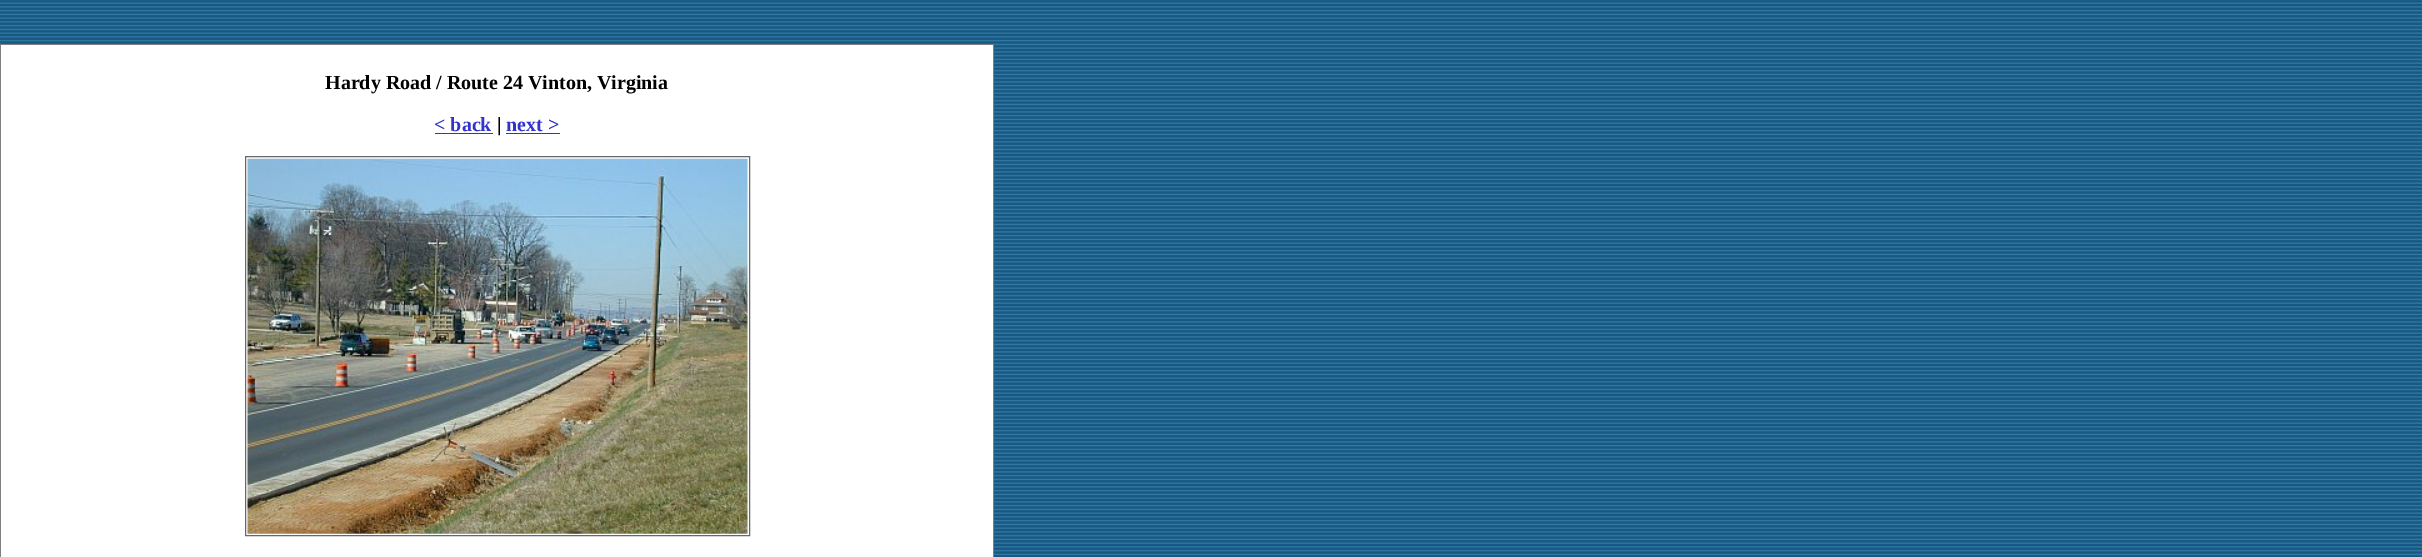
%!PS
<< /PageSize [2422 557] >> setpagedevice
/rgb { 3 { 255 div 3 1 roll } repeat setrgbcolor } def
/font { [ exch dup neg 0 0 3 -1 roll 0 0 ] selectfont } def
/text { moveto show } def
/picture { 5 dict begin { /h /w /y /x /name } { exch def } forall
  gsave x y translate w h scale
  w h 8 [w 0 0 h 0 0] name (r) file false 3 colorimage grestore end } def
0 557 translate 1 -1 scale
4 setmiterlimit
255 255 255 rgb
0 0 2422 557 rectfill
(img_01.rgb) 0 0 2422 557 picture
1 45 992 512 rectfill
128 128 128 rgb
0 44 994 1 rectfill
993 44 1 513 rectfill
0 44 1 513 rectfill
51 51 204 rgb
435 133 58 1 rectfill
506 133 54 1 rectfill
104 104 104 rgb
245.5 156.5 504 379 rectstroke
(img_02.rgb) 247 158 501 376 picture
/LiberationSerif-Bold 20 font
0 0 0 rgb
(Hardy Road / Route 24 Vinton, Virginia) 325 89 text
51 51 204 rgb
(< back) 434 131 text
0 0 0 rgb
(|) 497 131 text
51 51 204 rgb
(next >) 506 131 text
showpage
